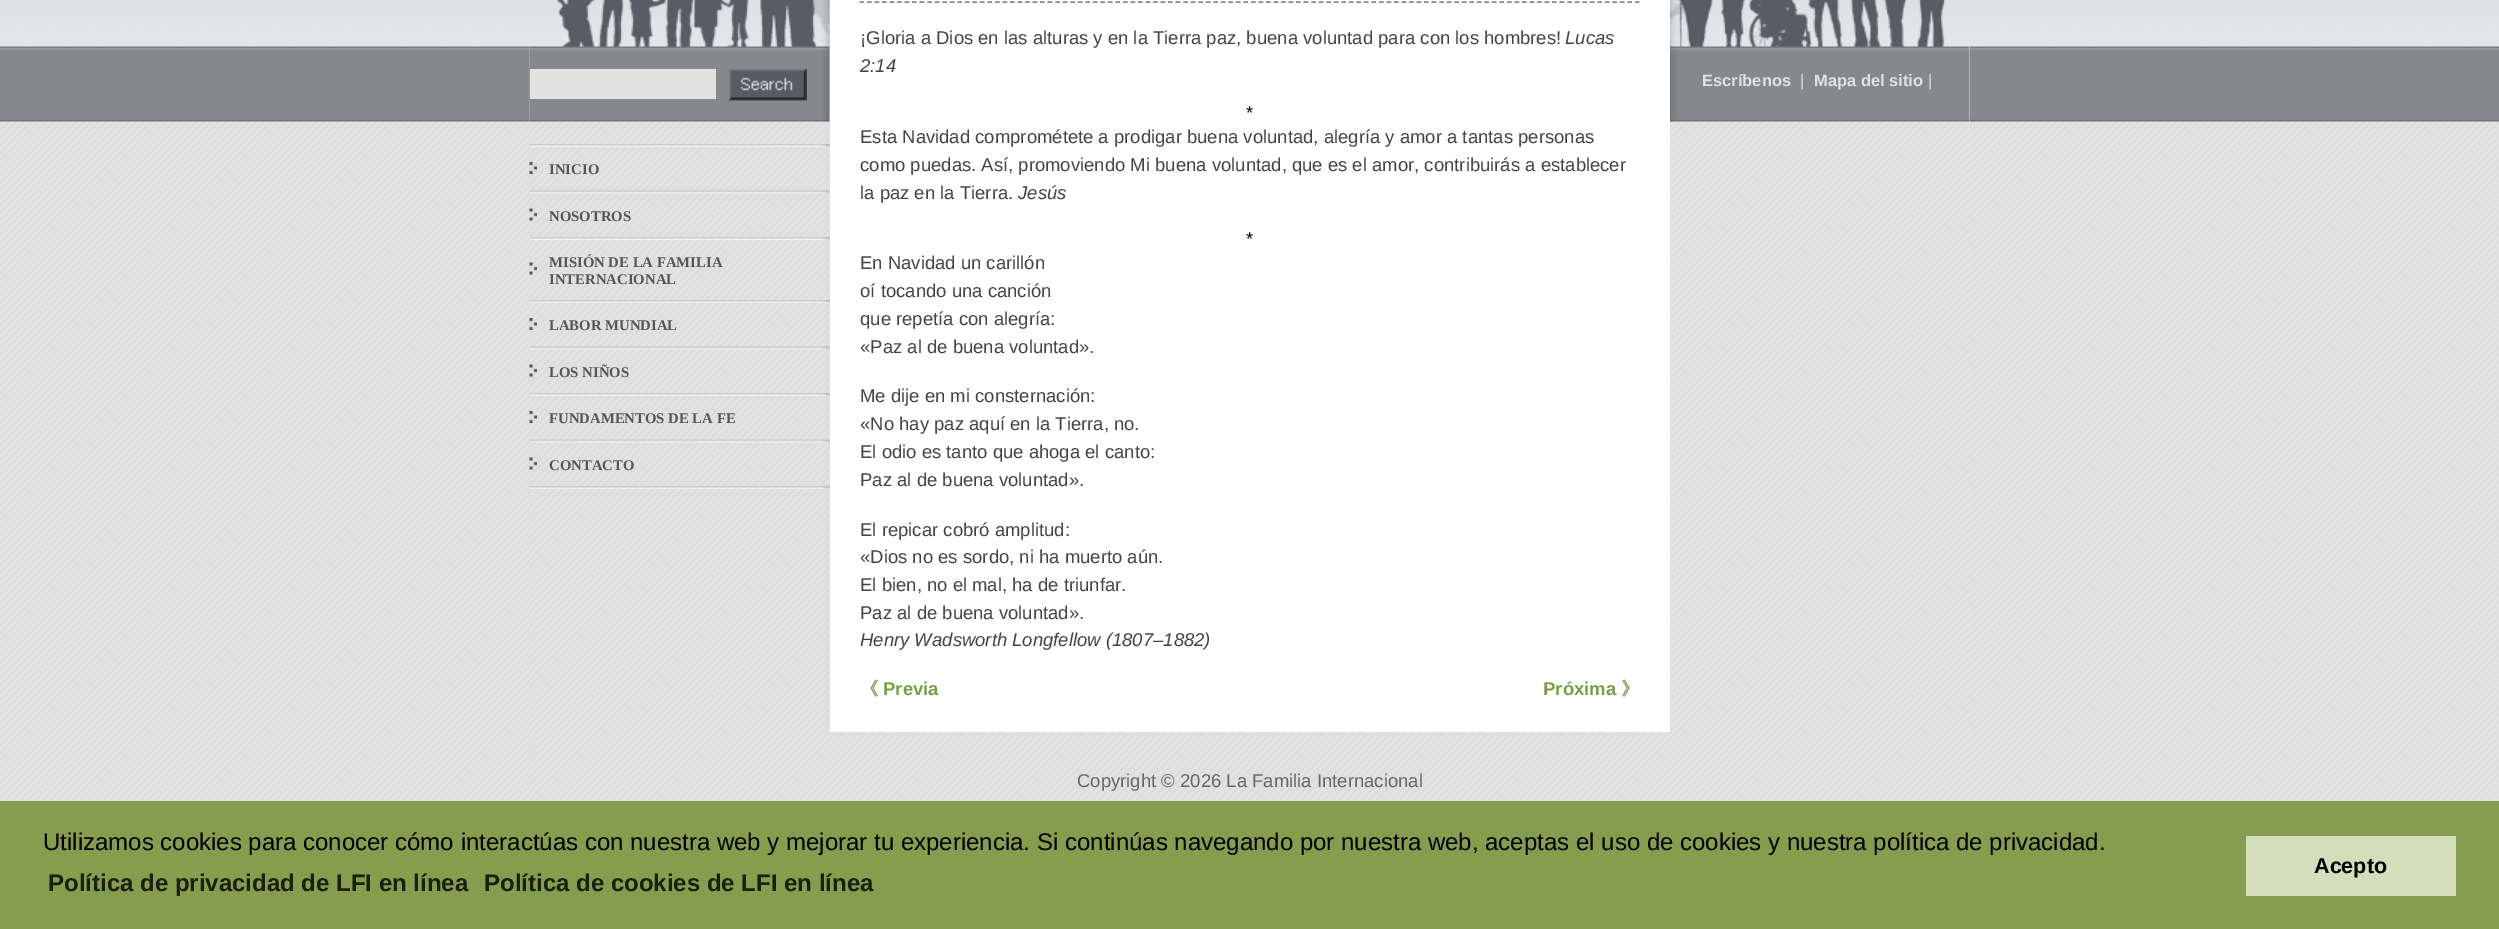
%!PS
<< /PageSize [2499 929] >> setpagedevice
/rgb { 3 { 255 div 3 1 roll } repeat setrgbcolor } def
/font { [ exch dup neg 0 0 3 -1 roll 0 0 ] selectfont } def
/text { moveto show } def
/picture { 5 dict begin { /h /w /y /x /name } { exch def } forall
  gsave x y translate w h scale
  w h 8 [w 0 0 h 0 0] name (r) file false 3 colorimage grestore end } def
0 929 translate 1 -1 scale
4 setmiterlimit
255 255 255 rgb
0 0 2499 929 rectfill
(img_01.rgb) 0 121 2499 680 picture
(img_02.rgb) 0 0 2499 122 picture
226 226 226 rgb
1969 0 1 801 rectfill
(img_03.rgb) 529 0 1440 801 picture
255 255 255 rgb
830 0 840 732 rectfill
133 136 141 rgb
1.5 setlinewidth
[4.5 3.03] 0 setdash
859.5 2 moveto 780 0 rlineto stroke
(img_04.rgb) 1670 0 300 122 picture
(img_05.rgb) 529 0 301 122 picture
226 226 226 rgb
530 69 186 30 rectfill
(img_06.rgb) 729 69 78 32 picture
(img_07.rgb) 529 486 301 3 picture
(img_08.rgb) 529 144 301 3 picture
(img_09.rgb) 529 162 8 12 picture
(img_10.rgb) 529 190 301 4 picture
(img_11.rgb) 529 208 8 13 picture
(img_12.rgb) 529 237 301 3 picture
(img_13.rgb) 529 262 8 13 picture
(img_14.rgb) 529 300 301 3 picture
(img_15.rgb) 529 318 8 12 picture
(img_16.rgb) 529 346 301 4 picture
(img_17.rgb) 529 364 8 13 picture
(img_18.rgb) 529 393 301 3 picture
(img_19.rgb) 529 411 8 12 picture
(img_20.rgb) 529 439 301 4 picture
(img_13.rgb) 529 457 8 13 picture
133 157 76 rgb
0 801 2499 128 rectfill
212 222 187 rgb
2246 836 210 60 rectfill
/LiberationSans-Regular 18.5 font
68 68 68 rgb
(¡Gloria a Dios en las alturas y en la Tierra paz, buena voluntad para con los hombres!) 860 44 text
/LiberationSans-Italic 18.5 font
(Lucas) 1565 44 text
(2:14) 860 72 text
/LiberationSans-Regular 18.5 font
0 0 0 rgb
(*) 1246 119 text
68 68 68 rgb
(Esta Navidad comprométete a prodigar buena voluntad, alegría y amor a tantas personas) 860 143 text
(como puedas. Así, promoviendo Mi buena voluntad, que es el amor, contribuirás a establecer) 860 171 text
(la paz en la Tierra.) 860 199 text
/LiberationSans-Italic 18.5 font
(Jesús) 1018 199 text
/LiberationSans-Regular 18.5 font
0 0 0 rgb
(*) 1246 245 text
68 68 68 rgb
(En Navidad un carillón) 860 269 text
(oí tocando una canción) 860 297 text
(que repetía con alegría:) 860 325 text
(«Paz al de buena voluntad».) 860 353 text
(Me dije en mi consternación:) 860 402 text
(«No hay paz aquí en la Tierra, no.) 860 430 text
(El odio es tanto que ahoga el canto:) 860 458 text
(Paz al de buena voluntad».) 860 486 text
(El repicar cobró amplitud:) 860 536 text
(«Dios no es sordo, ni ha muerto aún.) 860 563 text
(El bien, no el mal, ha de triunfar.) 860 591 text
(Paz al de buena voluntad».) 860 619 text
/LiberationSans-Italic 18.5 font
(Henry Wadsworth Longfellow \(1807–1882\)) 860 646 text
/WenQuanYiZenHei-Bold 18.5 font
121 160 71 rgb
(《) 860 695 text
/LiberationSans-Bold 18.5 font
(Previa) 883 695 text
(Próxima) 1543 695 text
/WenQuanYiZenHei-Bold 18.5 font
(》) 1621 695 text
/LiberationSans-Regular 18.5 font
102 102 102 rgb
(Copyright © 2026 La Familia Internacional) 1077 787 text
/LiberationSans-Bold 16.5 font
226 226 226 rgb
(Escríbenos) 1702 86 text
/LiberationSans-Regular 16.5 font
(|) 1800 86 text
/LiberationSans-Bold 16.5 font
(Mapa del sitio) 1814 86 text
/LiberationSans-Regular 16.5 font
(|) 1928 86 text
/LiberationSerif-Bold 14.75 font
85 85 85 rgb
(INICIO) 549 174 text
(NOSOTROS) 549 221 text
(MISIÓN DE LA FAMILIA) 549 267 text
(INTERNACIONAL) 549 284 text
(LABOR MUNDIAL) 549 330 text
(LOS NIÑOS) 549 377 text
(FUNDAMENTOS DE LA FE) 549 423 text
(CONTACTO) 549 470 text
/LiberationSans-Regular 24 font
0 0 0 rgb
(Utilizamos cookies para conocer cómo interactúas con nuestra web y mejorar tu experiencia. Si continúas navegando por nuestra web, aceptas el uso de cookies y nuestra política de privacidad.) 43 850 text
/LiberationSans-Bold 24 font
27 31 15 rgb
(Política de privacidad de LFI en línea) 48 891 text
(Política de cookies de LFI en línea) 484 891 text
/LiberationSans-Bold 21.5 font
0 0 0 rgb
(Acepto) 2314 873 text
showpage
